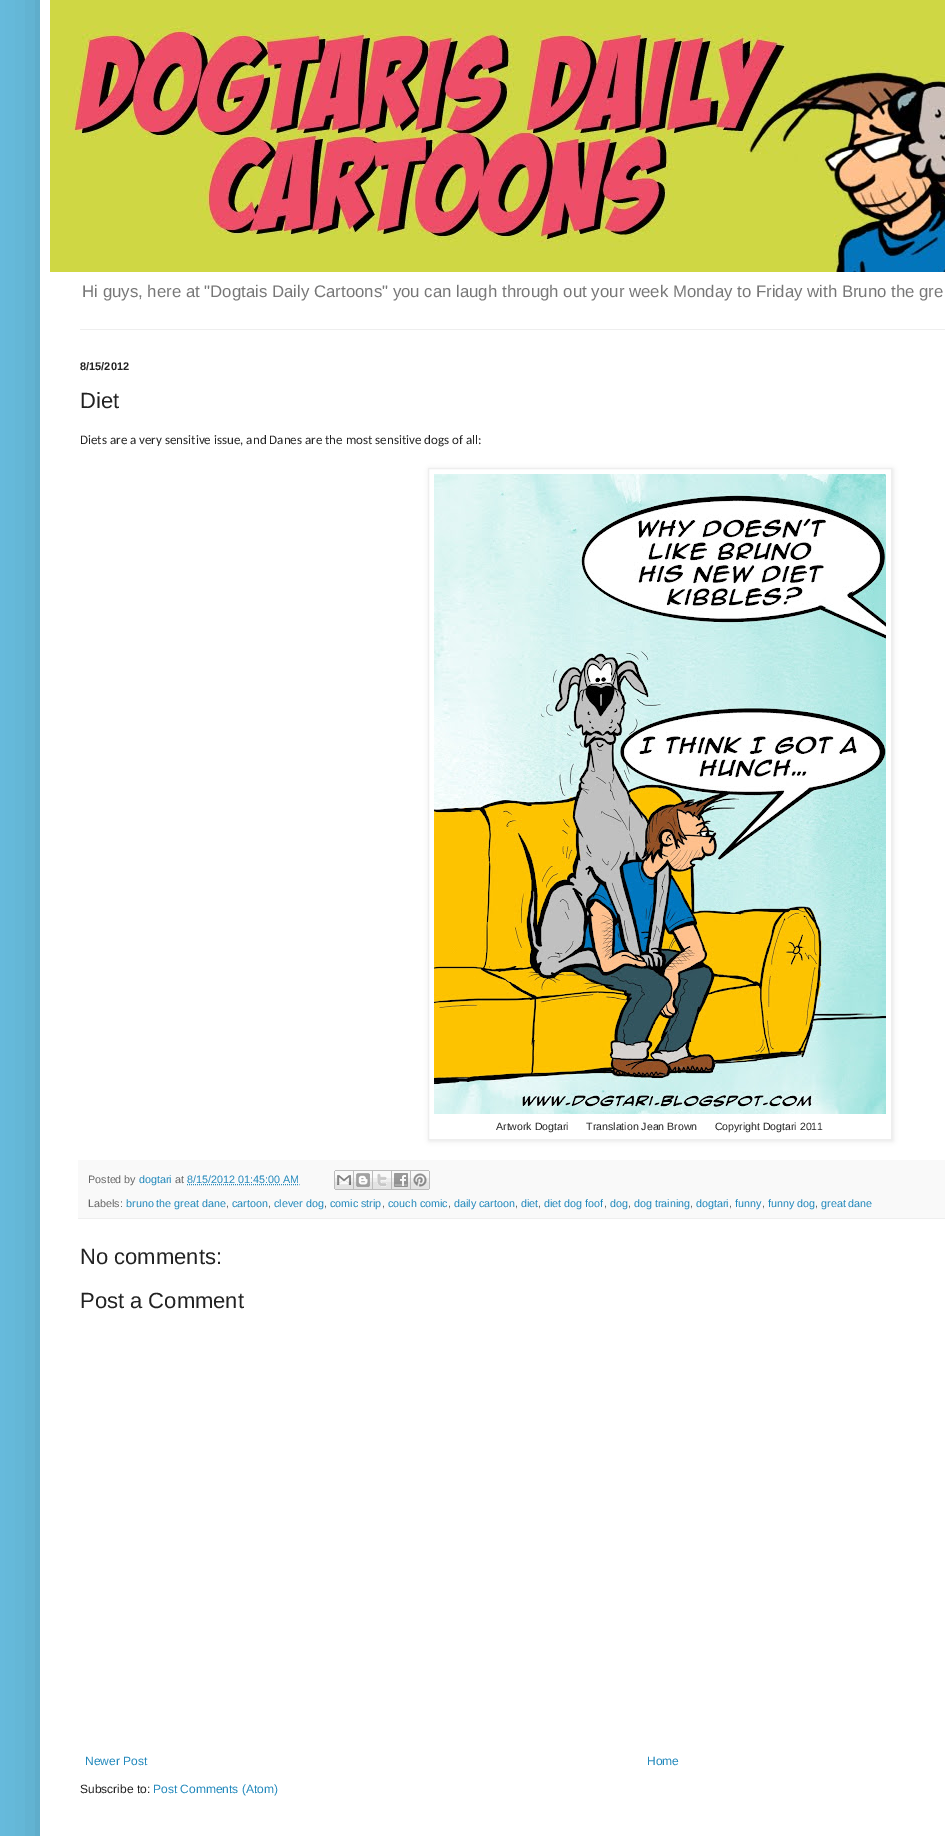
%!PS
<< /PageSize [945 1836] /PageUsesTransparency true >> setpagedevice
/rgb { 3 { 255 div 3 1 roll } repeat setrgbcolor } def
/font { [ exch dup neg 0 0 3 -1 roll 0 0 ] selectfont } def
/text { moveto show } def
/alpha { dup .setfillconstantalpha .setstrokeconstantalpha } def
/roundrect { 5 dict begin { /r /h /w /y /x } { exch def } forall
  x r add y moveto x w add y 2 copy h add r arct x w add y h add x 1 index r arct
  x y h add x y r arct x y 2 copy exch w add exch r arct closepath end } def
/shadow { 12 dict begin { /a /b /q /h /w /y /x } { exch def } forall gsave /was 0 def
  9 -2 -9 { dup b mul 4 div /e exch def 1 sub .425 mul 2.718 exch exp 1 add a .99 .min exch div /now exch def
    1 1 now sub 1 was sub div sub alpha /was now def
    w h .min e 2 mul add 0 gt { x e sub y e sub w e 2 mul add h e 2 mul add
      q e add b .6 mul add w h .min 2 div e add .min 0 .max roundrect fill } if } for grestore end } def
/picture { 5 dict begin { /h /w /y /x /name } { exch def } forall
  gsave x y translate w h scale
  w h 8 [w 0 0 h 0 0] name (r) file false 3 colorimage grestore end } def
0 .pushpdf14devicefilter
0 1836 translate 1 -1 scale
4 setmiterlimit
102 187 221 rgb
0 0 945 1836 rectfill
0 0 0 rgb
40 -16 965 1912 0 20 0.15 shadow
255 255 255 rgb
40 0 905 1836 rectfill
(img_01.rgb) 50 0 895 272 picture
238 238 238 rgb
80 329 865 1 rectfill
gsave
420 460 moveto 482 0 rlineto 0 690 rlineto -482 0 rlineto closepath 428 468 moveto 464 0 rlineto 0 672 rlineto -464 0 rlineto closepath eoclip newpath
0 0 0 rgb
429 469 464 672 0 2.5 0.1 shadow
grestore
428.5 468.5 463 671 rectstroke
(img_02.rgb) 434 474 452 640 picture
249 249 249 rgb
78 1160 867 58 rectfill
238 238 238 rgb
78 1218 867 1 rectfill
34 136 187 rgb
[1 1] 0 setdash
187 1184.5 moveto 112.5 0 rlineto stroke
(img_03.rgb) 334 1170 20 20 picture
(img_04.rgb) 354 1170 19 20 picture
(img_05.rgb) 373 1170 19 20 picture
(img_06.rgb) 392 1170 19 20 picture
(img_07.rgb) 411 1170 19 20 picture
/LiberationSans-Regular 16.8 font
119 119 119 rgb
(Hi guys, here at "Dogtais Daily Cartoons" you can laugh through out your week Monday to Friday with Bruno the gre) 82 297 text
/LiberationSans-Bold 11 font
34 34 34 rgb
(8/15/2012) 80 370 text
/LiberationSans-Regular 22 font
(Diet) 80 408 text
/Carlito-Regular 13 font
(Diets are a very sensitive issue, and Danes are the most sensitive dogs of all:) 80 444 text
/LiberationSans-Regular 10.55 font
(Artwork Dogtari      Translation Jean Brown      Copyright Dogtari 2011) 496 1130 text
/LiberationSans-Regular 10.75 font
102 102 102 rgb
(Posted by) 88 1183 text
34 136 187 rgb
(dogtari) 139 1183 text
102 102 102 rgb
(at) 175 1183 text
34 136 187 rgb
(8/15/2012 01:45:00 AM) 187 1183 text
102 102 102 rgb
(Labels:) 88 1207 text
34 136 187 rgb
(bruno the great dane) 126 1207 text
102 102 102 rgb
(,) 226 1207 text
34 136 187 rgb
(cartoon) 232 1207 text
102 102 102 rgb
(,) 268 1207 text
34 136 187 rgb
(clever dog) 274 1207 text
102 102 102 rgb
(,) 324 1207 text
34 136 187 rgb
(comic strip) 330 1207 text
102 102 102 rgb
(,) 382 1207 text
34 136 187 rgb
(couch comic) 388 1207 text
102 102 102 rgb
(,) 448 1207 text
34 136 187 rgb
(daily cartoon) 454 1207 text
102 102 102 rgb
(,) 515 1207 text
34 136 187 rgb
(diet) 521 1207 text
102 102 102 rgb
(,) 538 1207 text
34 136 187 rgb
(diet dog foof) 544 1207 text
102 102 102 rgb
(,) 604 1207 text
34 136 187 rgb
(dog) 610 1207 text
102 102 102 rgb
(,) 628 1207 text
34 136 187 rgb
(dog training) 634 1207 text
102 102 102 rgb
(,) 690 1207 text
34 136 187 rgb
(dogtari) 696 1207 text
102 102 102 rgb
(,) 729 1207 text
34 136 187 rgb
(funny) 735 1207 text
102 102 102 rgb
(,) 762 1207 text
34 136 187 rgb
(funny dog) 768 1207 text
102 102 102 rgb
(,) 815 1207 text
34 136 187 rgb
(great dane) 821 1207 text
/LiberationSans-Regular 22 font
34 34 34 rgb
(No comments:) 80 1264 text
(Post a Comment) 80 1308 text
/LiberationSans-Regular 12 font
34 136 187 rgb
(Newer Post) 85 1765 text
(Home) 647 1765 text
34 34 34 rgb
(Subscribe to:) 80 1793 text
34 136 187 rgb
(Post Comments \(Atom\)) 153 1793 text
.poppdf14devicefilter showpage
